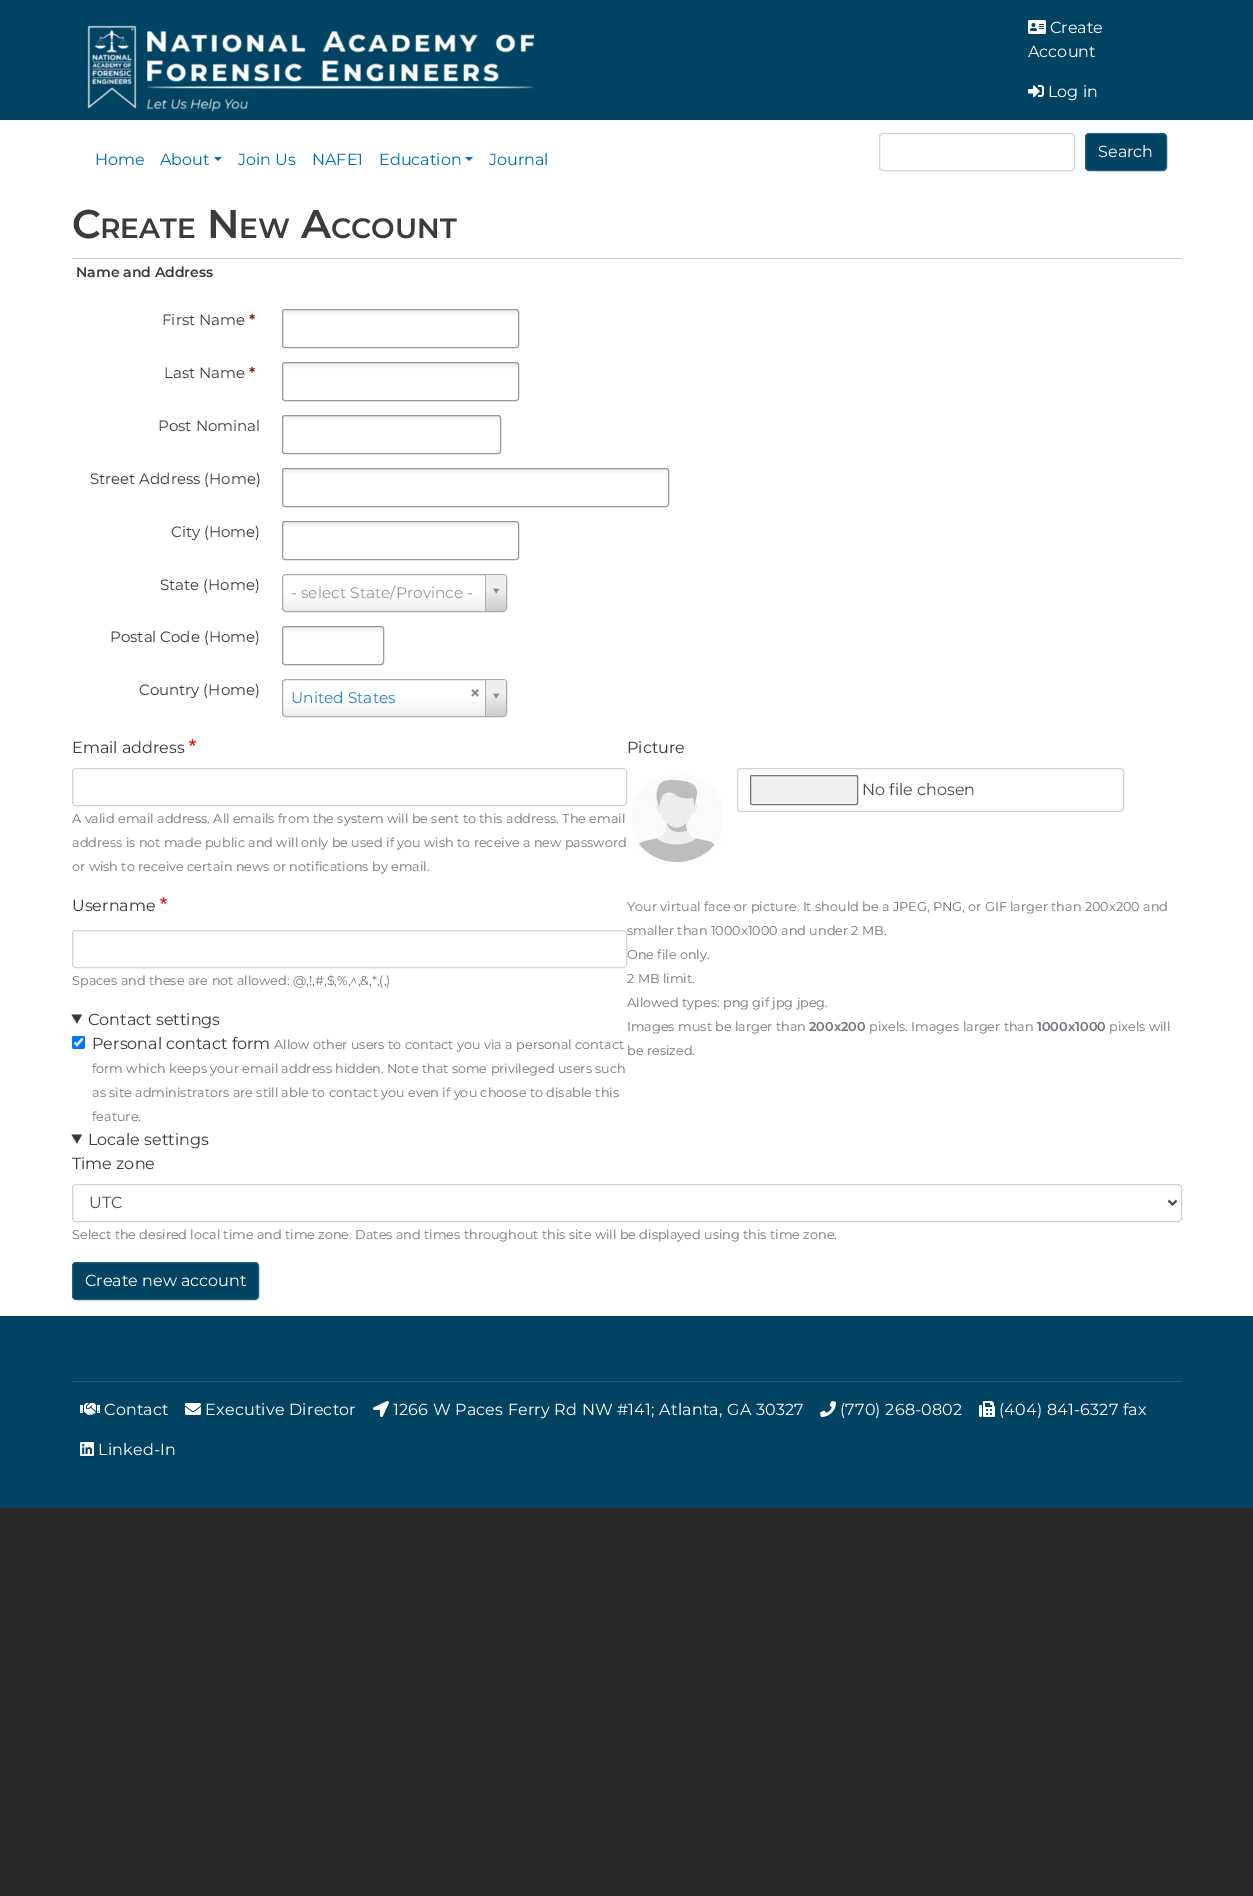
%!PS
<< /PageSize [1253 1896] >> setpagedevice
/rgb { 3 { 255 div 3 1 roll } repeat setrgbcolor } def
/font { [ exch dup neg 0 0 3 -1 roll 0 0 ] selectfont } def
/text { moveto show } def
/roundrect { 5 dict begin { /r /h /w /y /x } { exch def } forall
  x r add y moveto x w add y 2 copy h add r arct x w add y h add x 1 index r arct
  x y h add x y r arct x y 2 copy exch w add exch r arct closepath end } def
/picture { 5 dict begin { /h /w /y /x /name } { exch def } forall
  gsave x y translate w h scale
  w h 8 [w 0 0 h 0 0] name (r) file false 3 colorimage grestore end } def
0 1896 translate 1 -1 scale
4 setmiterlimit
41 41 41 rgb
0 0 1253 1896 rectfill
255 255 255 rgb
0 120 1253 1196 rectfill
0 67 99 rgb
0 0 1253 120 rectfill
(img_01.rgb) 87 25 447 87 picture
(img_02.rgb) 1028 20 18 14 picture
(img_03.rgb) 1028 85 16 13 picture
206 212 218 rgb
879.5 133.5 195 37 3.5 roundrect stroke
0 67 99 rgb
1085.5 133.5 81 37 3.5 roundrect gsave fill grestore
32 99 131 rgb
stroke
0 113 179 rgb
214 157 moveto 8 0 rlineto -4 4 rlineto closepath fill
465 157 moveto 8 0 rlineto -4 4 rlineto closepath fill
207 206 195 rgb
72 258 1110 1 rectfill
gsave
282 309 237 39 3 roundrect clip newpath
gsave 282 310 moveto 237 0 rlineto 0 37 rlineto -237 0 rlineto closepath clip newpath
<< /ShadingType 2 /ColorSpace /DeviceRGB /Coords [401 310 401 347] /Extend [true true] /Function << /FunctionType 3 /Domain [0 1] /Functions [<< /FunctionType 2 /Domain [0 1] /C0 [0.933 0.933 0.933] /C1 [0.933 0.933 0.933] /N 1 >> << /FunctionType 2 /Domain [0 1] /C0 [0.933 0.933 0.933] /C1 [1 1 1] /N 1 >> << /FunctionType 2 /Domain [0 1] /C0 [1 1 1] /C1 [1 1 1] /N 1 >>] /Bounds [0.01 0.15] /Encode [0 1 0 1 0 1] >> >> shfill grestore
grestore
153 153 153 rgb
282.5 309.5 236 38 2.5 roundrect stroke
gsave
282 362 237 39 3 roundrect clip newpath
gsave 282 363 moveto 237 0 rlineto 0 37 rlineto -237 0 rlineto closepath clip newpath
<< /ShadingType 2 /ColorSpace /DeviceRGB /Coords [401 363 401 400] /Extend [true true] /Function << /FunctionType 3 /Domain [0 1] /Functions [<< /FunctionType 2 /Domain [0 1] /C0 [0.933 0.933 0.933] /C1 [0.933 0.933 0.933] /N 1 >> << /FunctionType 2 /Domain [0 1] /C0 [0.933 0.933 0.933] /C1 [1 1 1] /N 1 >> << /FunctionType 2 /Domain [0 1] /C0 [1 1 1] /C1 [1 1 1] /N 1 >>] /Bounds [0.01 0.15] /Encode [0 1 0 1 0 1] >> >> shfill grestore
grestore
282.5 362.5 236 38 2.5 roundrect stroke
gsave
282 415 219 39 3 roundrect clip newpath
gsave 282 416 moveto 219 0 rlineto 0 37 rlineto -219 0 rlineto closepath clip newpath
<< /ShadingType 2 /ColorSpace /DeviceRGB /Coords [392 416 392 453] /Extend [true true] /Function << /FunctionType 3 /Domain [0 1] /Functions [<< /FunctionType 2 /Domain [0 1] /C0 [0.933 0.933 0.933] /C1 [0.933 0.933 0.933] /N 1 >> << /FunctionType 2 /Domain [0 1] /C0 [0.933 0.933 0.933] /C1 [1 1 1] /N 1 >> << /FunctionType 2 /Domain [0 1] /C0 [1 1 1] /C1 [1 1 1] /N 1 >>] /Bounds [0.01 0.15] /Encode [0 1 0 1 0 1] >> >> shfill grestore
grestore
282.5 415.5 218 38 2.5 roundrect stroke
gsave
282 468 387 39 3 roundrect clip newpath
gsave 282 469 moveto 387 0 rlineto 0 37 rlineto -387 0 rlineto closepath clip newpath
<< /ShadingType 2 /ColorSpace /DeviceRGB /Coords [476 469 476 506] /Extend [true true] /Function << /FunctionType 3 /Domain [0 1] /Functions [<< /FunctionType 2 /Domain [0 1] /C0 [0.933 0.933 0.933] /C1 [0.933 0.933 0.933] /N 1 >> << /FunctionType 2 /Domain [0 1] /C0 [0.933 0.933 0.933] /C1 [1 1 1] /N 1 >> << /FunctionType 2 /Domain [0 1] /C0 [1 1 1] /C1 [1 1 1] /N 1 >>] /Bounds [0.01 0.15] /Encode [0 1 0 1 0 1] >> >> shfill grestore
grestore
282.5 468.5 386 38 2.5 roundrect stroke
gsave
282 521 237 39 3 roundrect clip newpath
gsave 282 522 moveto 237 0 rlineto 0 37 rlineto -237 0 rlineto closepath clip newpath
<< /ShadingType 2 /ColorSpace /DeviceRGB /Coords [401 522 401 559] /Extend [true true] /Function << /FunctionType 3 /Domain [0 1] /Functions [<< /FunctionType 2 /Domain [0 1] /C0 [0.933 0.933 0.933] /C1 [0.933 0.933 0.933] /N 1 >> << /FunctionType 2 /Domain [0 1] /C0 [0.933 0.933 0.933] /C1 [1 1 1] /N 1 >> << /FunctionType 2 /Domain [0 1] /C0 [1 1 1] /C1 [1 1 1] /N 1 >>] /Bounds [0.01 0.15] /Encode [0 1 0 1 0 1] >> >> shfill grestore
grestore
282.5 521.5 236 38 2.5 roundrect stroke
gsave 283 575 223 36 3 roundrect clip newpath
<< /ShadingType 2 /ColorSpace /DeviceRGB /Coords [395 611 395 575] /Extend [true true] /Function << /FunctionType 3 /Domain [0 1] /Functions [<< /FunctionType 2 /Domain [0 1] /C0 [0.933 0.933 0.933] /C1 [1 1 1] /N 1 >> << /FunctionType 2 /Domain [0 1] /C0 [1 1 1] /C1 [1 1 1] /N 1 >>] /Bounds [0.5] /Encode [0 1 0 1] >> >> shfill grestore
170 170 170 rgb
282.5 574.5 224 37 3.5 roundrect stroke
gsave
283 575 223 36 3 roundrect clip newpath
gsave 485 575 moveto 17 0 rlineto 2 0 4 2 4 4 rcurveto 0 28 rlineto 0 2 -2 4 -4 4 rcurveto -17 0 rlineto closepath clip newpath
<< /ShadingType 2 /ColorSpace /DeviceRGB /Coords [496 611 496 575] /Extend [true true] /Function << /FunctionType 3 /Domain [0 1] /Functions [<< /FunctionType 2 /Domain [0 1] /C0 [0.8 0.8 0.8] /C1 [0.933 0.933 0.933] /N 1 >> << /FunctionType 2 /Domain [0 1] /C0 [0.933 0.933 0.933] /C1 [0.933 0.933 0.933] /N 1 >>] /Bounds [0.6] /Encode [0 1 0 1] >> >> shfill grestore
grestore
485 575 1 36 rectfill
(img_04.rgb) 493 588 7 6 picture
gsave
282 626 102 39 3 roundrect clip newpath
gsave 282 627 moveto 102 0 rlineto 0 37 rlineto -102 0 rlineto closepath clip newpath
<< /ShadingType 2 /ColorSpace /DeviceRGB /Coords [333 627 333 664] /Extend [true true] /Function << /FunctionType 3 /Domain [0 1] /Functions [<< /FunctionType 2 /Domain [0 1] /C0 [0.933 0.933 0.933] /C1 [0.933 0.933 0.933] /N 1 >> << /FunctionType 2 /Domain [0 1] /C0 [0.933 0.933 0.933] /C1 [1 1 1] /N 1 >> << /FunctionType 2 /Domain [0 1] /C0 [1 1 1] /C1 [1 1 1] /N 1 >>] /Bounds [0.01 0.15] /Encode [0 1 0 1 0 1] >> >> shfill grestore
grestore
153 153 153 rgb
282.5 626.5 101 38 2.5 roundrect stroke
gsave 283 680 223 36 3 roundrect clip newpath
<< /ShadingType 2 /ColorSpace /DeviceRGB /Coords [395 716 395 680] /Extend [true true] /Function << /FunctionType 3 /Domain [0 1] /Functions [<< /FunctionType 2 /Domain [0 1] /C0 [0.933 0.933 0.933] /C1 [1 1 1] /N 1 >> << /FunctionType 2 /Domain [0 1] /C0 [1 1 1] /C1 [1 1 1] /N 1 >>] /Bounds [0.5] /Encode [0 1 0 1] >> >> shfill grestore
170 170 170 rgb
282.5 679.5 224 37 3.5 roundrect stroke
(img_05.rgb) 471 689 8 8 picture
gsave
283 680 223 36 3 roundrect clip newpath
gsave 485 680 moveto 17 0 rlineto 2 0 4 2 4 4 rcurveto 0 28 rlineto 0 2 -2 4 -4 4 rcurveto -17 0 rlineto closepath clip newpath
<< /ShadingType 2 /ColorSpace /DeviceRGB /Coords [496 716 496 680] /Extend [true true] /Function << /FunctionType 3 /Domain [0 1] /Functions [<< /FunctionType 2 /Domain [0 1] /C0 [0.8 0.8 0.8] /C1 [0.933 0.933 0.933] /N 1 >> << /FunctionType 2 /Domain [0 1] /C0 [0.933 0.933 0.933] /C1 [0.933 0.933 0.933] /N 1 >>] /Bounds [0.6] /Encode [0 1 0 1] >> >> shfill grestore
grestore
485 680 1 36 rectfill
(img_04.rgb) 493 693 7 6 picture
(img_06.rgb) 189 739 7 7 picture
206 212 218 rgb
72.5 768.5 554 37 3.5 roundrect stroke
(img_06.rgb) 160 897 7 7 picture
72.5 930.5 554 37 3.5 roundrect stroke
59 59 59 rgb
71.5 1014.5 moveto 10.5 0 rlineto -5 9 rlineto closepath fill
0 117 255 rgb
72 1036 13 13 2 roundrect fill
255 255 255 rgb
2.1 setlinewidth
74.5 1042.5 moveto 2.5 2.5 rlineto 5.5 -6.5 rlineto stroke
(img_07.rgb) 632 775 91 89 picture
206 212 218 rgb
1 setlinewidth
737.5 768.5 386 43 3.5 roundrect stroke
239 239 239 rgb
750.5 775.5 107 29 1.5 roundrect gsave fill grestore
118 118 118 rgb
stroke
59 59 59 rgb
71.5 1134.5 moveto 10.5 0 rlineto -5 9 rlineto closepath fill
206 212 218 rgb
72.5 1184.5 1109 37 3.5 roundrect stroke
73 80 87 rgb
2 setlinewidth
1168.5 1200.5 moveto 4 4 rlineto 4 -4 rlineto stroke
0 67 99 rgb
72.5 1262.5 186 37 3.5 roundrect gsave fill grestore
32 99 131 rgb
1 setlinewidth
stroke
0 67 99 rgb
0 1316 1253 192 rectfill
38 95 122 rgb
72 1381 1110 1 rectfill
(img_08.rgb) 80 1403 20 12 picture
(img_09.rgb) 185 1403 16 12 picture
(img_10.rgb) 373 1401 16 16 picture
(img_11.rgb) 820 1401 16 16 picture
(img_12.rgb) 979 1401 16 16 picture
(img_13.rgb) 80 1442 14 14 picture
/Montserrat-Regular 16 font
255 255 255 rgb
(Create) 1050 33 text
(Account) 1028 57 text
(Log in) 1048 97 text
(Search) 1098 157 text
0 113 179 rgb
(Home) 95 165 text
(About) 160 165 text
(Join Us) 238 165 text
(NAFE1) 312 165 text
(Education) 379 165 text
(Journal) 489 165 text
/Montserrat-SemiBold 40 font
59 59 59 rgb
(C) 72 238 text
/Montserrat-SemiBold 28 font
(REATE) 100 238 text
/Montserrat-SemiBold 40 font
(N) 207 238 text
/Montserrat-SemiBold 28 font
(EW) 239 238 text
/Montserrat-SemiBold 40 font
(A) 301 238 text
/Montserrat-SemiBold 28 font
(CCOUNT) 331 238 text
/Montserrat-SemiBold 14 font
(Name and Address) 76 277 text
/Montserrat-Regular 15 font
(First Name) 162 325 text
/Montserrat-SemiBold 15 font
138 31 17 rgb
(*) 249 325 text
/Montserrat-Regular 15 font
59 59 59 rgb
(Last Name) 164 378 text
/Montserrat-SemiBold 15 font
138 31 17 rgb
(*) 249 378 text
/Montserrat-Regular 15 font
59 59 59 rgb
(Post Nominal) 158 431 text
(Street Address \(Home\)) 90 484 text
(City \(Home\)) 171 537 text
(State \(Home\)) 160 590 text
/Montserrat-Regular 15.4 font
153 153 153 rgb
(- select State/Province -) 291 598 text
/Montserrat-Regular 15 font
59 59 59 rgb
(Postal Code \(Home\)) 110 642 text
(Country \(Home\)) 139 695 text
/Montserrat-Regular 15.4 font
39 134 194 rgb
(United States) 291 703 text
/Montserrat-Regular 16 font
59 59 59 rgb
(Email address) 72 753 text
/Montserrat-Regular 12.8 font
108 117 125 rgb
(A valid email address. All emails from the system will be sent to this address. The email) 72 823 text
(address is not made public and will only be used if you wish to receive a new password) 72 847 text
(or wish to receive certain news or notifications by email.) 72 871 text
/Montserrat-Regular 16 font
59 59 59 rgb
(Username) 72 911 text
/Montserrat-Regular 12.8 font
108 117 125 rgb
(Spaces and these are not allowed: @,!,#,$,%,^,&,*,\(,\)) 72 985 text
/Montserrat-Regular 16 font
59 59 59 rgb
(Contact settings) 88 1025 text
(Personal contact form) 92 1049 text
/Montserrat-Regular 12.8 font
108 117 125 rgb
(Allow other users to contact you via a personal contact) 274 1049 text
(form which keeps your email address hidden. Note that some privileged users such) 92 1073 text
(as site administrators are still able to contact you even if you choose to disable this) 92 1097 text
(feature.) 92 1121 text
/Montserrat-Regular 16 font
59 59 59 rgb
(Picture) 627 753 text
73 80 87 rgb
(No file chosen) 862 795 text
/Montserrat-Regular 12.8 font
108 117 125 rgb
(Your virtual face or picture. It should be a JPEG, PNG, or GIF larger than 200x200 and) 627 911 text
(smaller than 1000x1000 and under 2 MB.) 627 935 text
(One file only.) 627 959 text
(2 MB limit.) 627 983 text
(Allowed types: png gif jpg jpeg.) 627 1007 text
(Images must be larger than) 627 1031 text
/Montserrat-SemiBold 12.8 font
(200x200) 809 1031 text
/Montserrat-Regular 12.8 font
(pixels. Images larger than) 869 1031 text
/Montserrat-SemiBold 12.8 font
(1000x1000) 1037 1031 text
/Montserrat-Regular 12.8 font
(pixels will) 1109 1031 text
(be resized.) 627 1055 text
/Montserrat-Regular 16 font
59 59 59 rgb
(Locale settings) 88 1145 text
(Time zone) 72 1169 text
73 80 87 rgb
(UTC) 89 1208 text
/Montserrat-Regular 12.8 font
108 117 125 rgb
(Select the desired local time and time zone. Dates and times throughout this site will be displayed using this time zone.) 72 1239 text
/Montserrat-Regular 16 font
255 255 255 rgb
(Create new account) 85 1286 text
104 1415 moveto 0.2 0 (Contact) ashow
205 1415 moveto 0.2 0 (Executive Director) ashow
393 1415 moveto 0.2 0 (1266 W Paces Ferry Rd NW #141; Atlanta, GA 30327) ashow
840 1415 moveto 0.2 0 (\(770\) 268-0802) ashow
999 1415 moveto 0.2 0 (\(404\) 841-6327 fax) ashow
98 1455 moveto 0.2 0 (Linked-In) ashow
showpage
